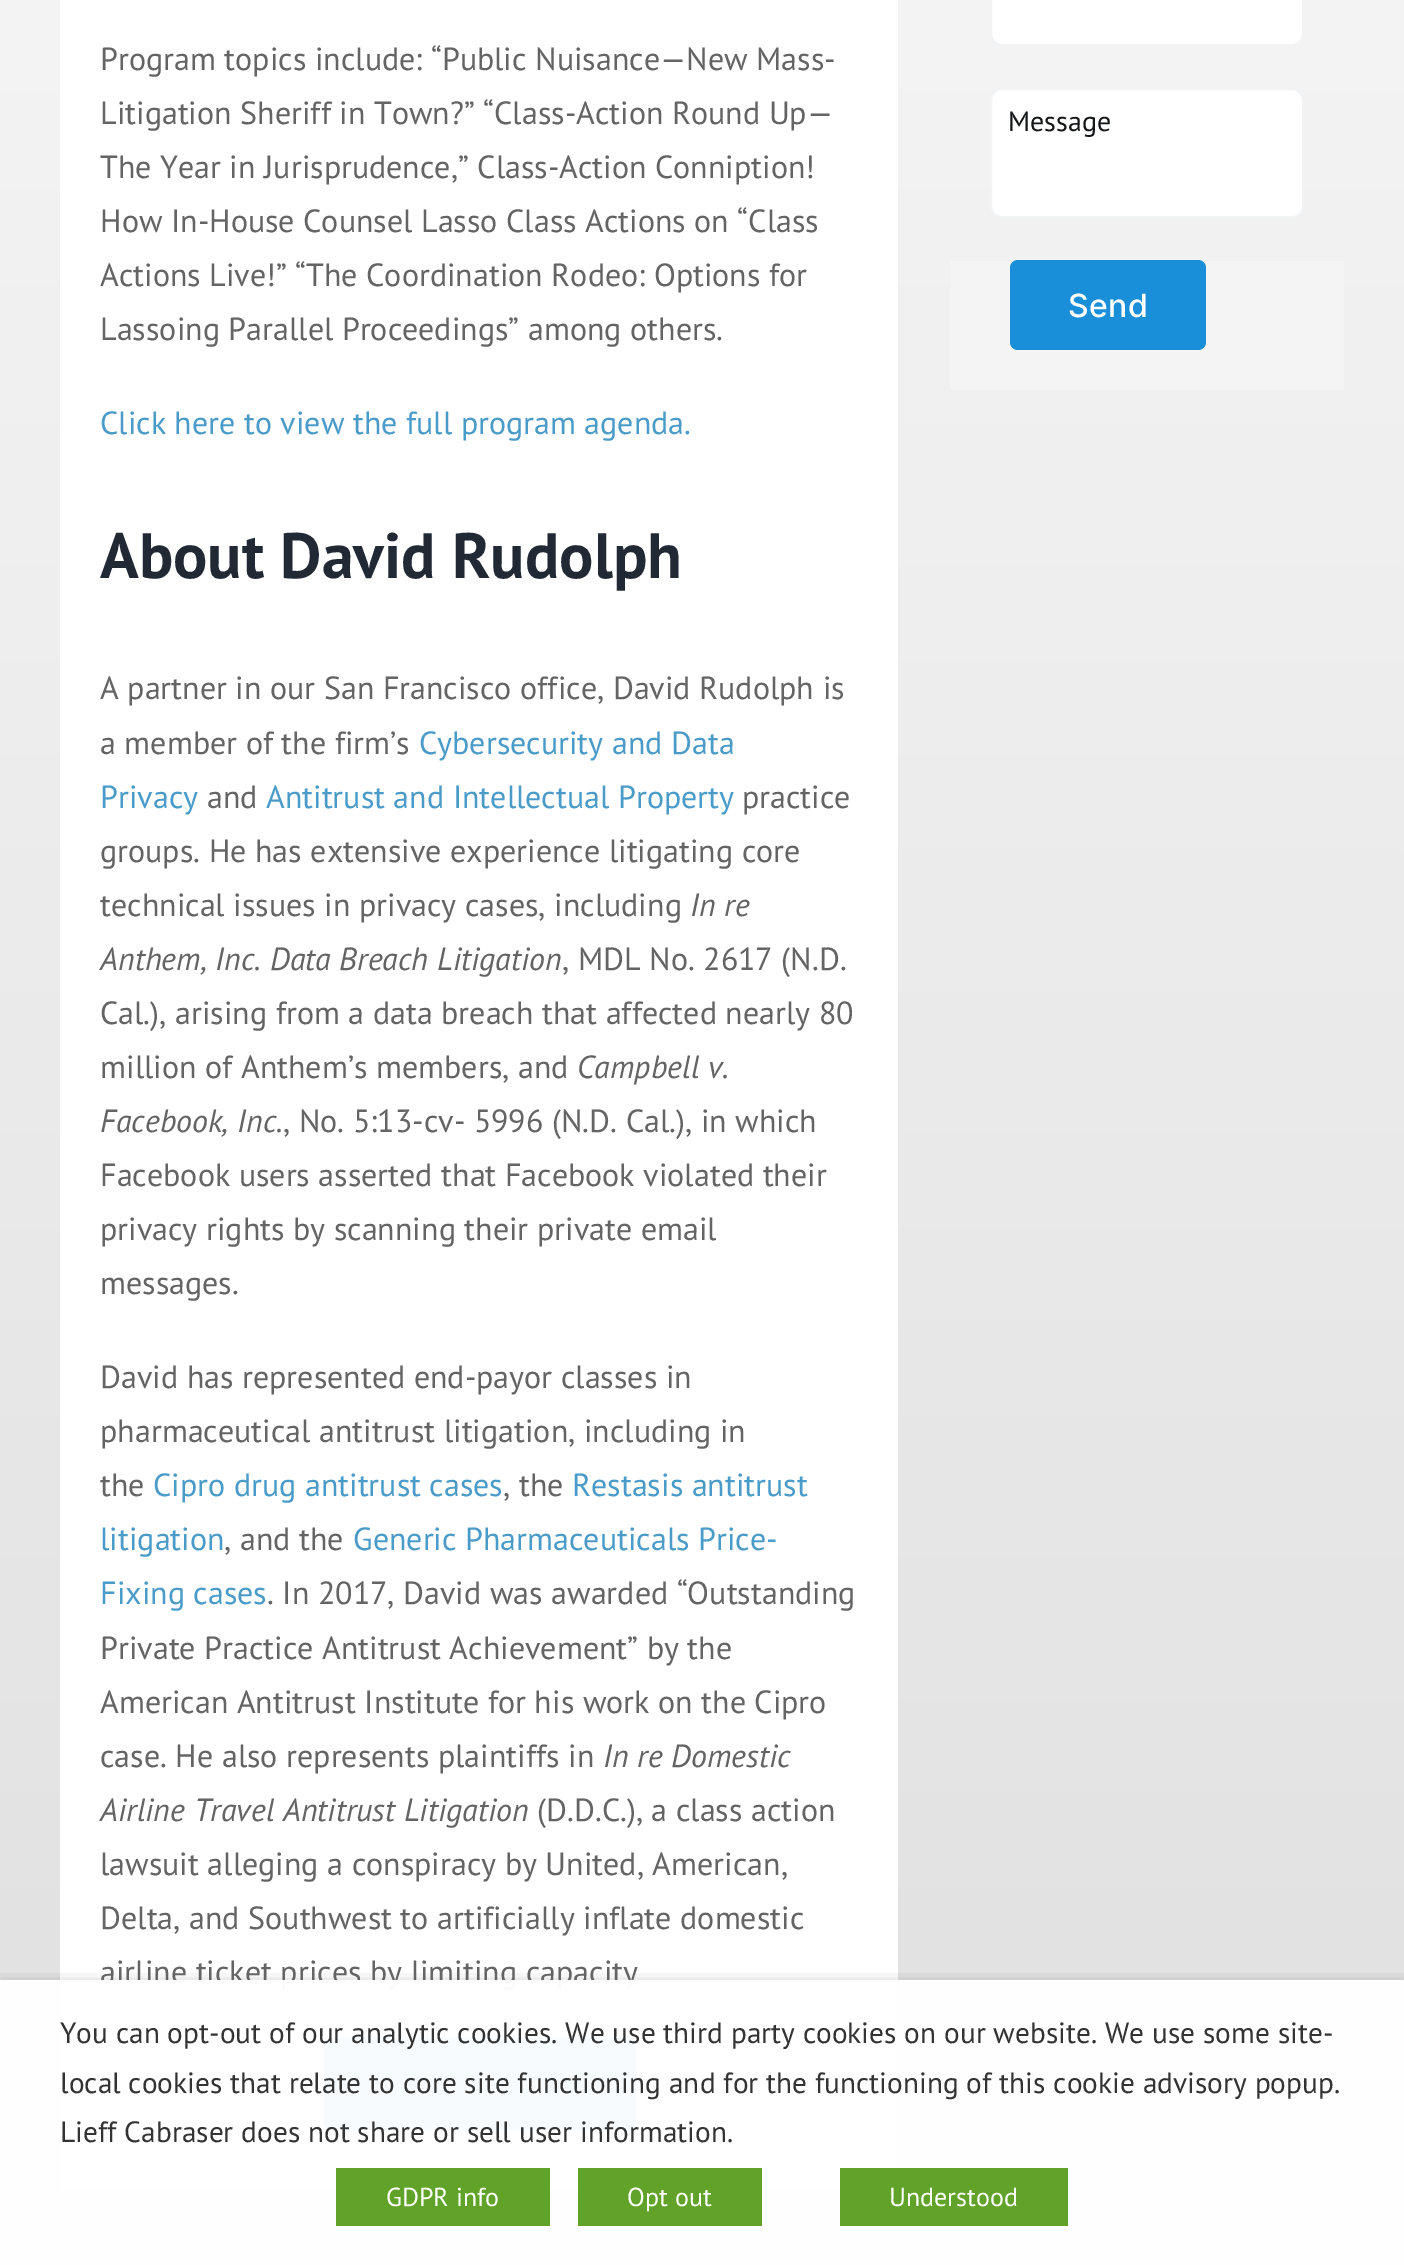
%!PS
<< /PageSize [1404 2265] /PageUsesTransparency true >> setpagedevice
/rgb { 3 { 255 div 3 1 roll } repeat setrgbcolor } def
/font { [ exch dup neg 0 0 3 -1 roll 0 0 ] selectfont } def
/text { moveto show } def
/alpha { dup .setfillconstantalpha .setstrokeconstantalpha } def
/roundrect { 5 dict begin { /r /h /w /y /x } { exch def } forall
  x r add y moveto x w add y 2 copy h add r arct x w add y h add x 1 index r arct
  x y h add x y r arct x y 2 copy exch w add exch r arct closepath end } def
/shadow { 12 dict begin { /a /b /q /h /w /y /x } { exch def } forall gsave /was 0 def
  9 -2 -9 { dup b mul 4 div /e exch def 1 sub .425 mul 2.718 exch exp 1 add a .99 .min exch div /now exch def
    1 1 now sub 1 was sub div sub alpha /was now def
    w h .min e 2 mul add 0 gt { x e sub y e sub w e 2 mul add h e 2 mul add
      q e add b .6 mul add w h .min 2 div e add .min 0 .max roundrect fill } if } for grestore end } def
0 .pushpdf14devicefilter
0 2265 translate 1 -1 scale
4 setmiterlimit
255 255 255 rgb
0 0 1404 2265 rectfill
gsave 0 0 moveto 1404 0 rlineto 0 2265 rlineto -1404 0 rlineto closepath clip newpath
<< /ShadingType 2 /ColorSpace /DeviceRGB /Coords [702 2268 702 -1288] /Extend [true true] /Function << /FunctionType 2 /Domain [0 1] /C0 [0.878 0.878 0.878] /C1 [1 1 1] /N 1 >> >> shfill grestore
60 0 838 2190 rectfill
25 143 217 rgb
324 2038 312 92 8 roundrect fill
244 244 244 rgb
950 261 394 129 rectfill
255 255 255 rgb
991 -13 312 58 11 roundrect gsave fill grestore
242 243 245 rgb
2 setlinewidth
stroke
255 255 255 rgb
991 89 312 128 11 roundrect gsave fill grestore
242 243 245 rgb
stroke
25 143 217 rgb
1010 260 196 90 8 roundrect fill
gsave
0 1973 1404 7 rectclip
0 0 0 rgb
0 1990 1404 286 0 10 0.5 shadow
grestore
/PTSans-Regular 32 font
100 100 100 rgb
(Program topics include: “Public Nuisance—New Mass-) 100 70 text
(Litigation Sheriff in Town?” “Class-Action Round Up—) 100 124 text
(The Year in Jurisprudence,” Class-Action Conniption!) 100 178 text
(How In-House Counsel Lasso Class Actions on “Class) 100 232 text
(Actions Live!” “The Coordination Rodeo: Options for) 100 286 text
(Lassoing Parallel Proceedings” among others.) 100 340 text
74 155 200 rgb
(Click here to view the full program agenda.) 100 434 text
/PTSans-Bold 64 font
33 41 52 rgb
(About David Rudolph) 100 578 text
/PTSans-Regular 32 font
100 100 100 rgb
(A partner in our San Francisco office, David Rudolph is) 100 699 text
(a member of the firm’s) 100 754 text
74 155 200 rgb
(Cybersecurity and Data) 419 754 text
(Privacy) 100 808 text
100 100 100 rgb
(and) 207 808 text
74 155 200 rgb
(Antitrust and Intellectual Property) 266 808 text
100 100 100 rgb
(practice) 742 808 text
(groups. He has extensive experience litigating core) 100 862 text
(technical issues in privacy cases, including) 100 916 text
/PTSans-Italic 32 font
(In re) 690 916 text
(Anthem, Inc. Data Breach Litigation) 100 970 text
/PTSans-Regular 32 font
(, MDL No. 2617 \(N.D.) 562 970 text
(Cal.\), arising from a data breach that affected nearly 80) 100 1024 text
(million of Anthem’s members, and) 100 1078 text
/PTSans-Italic 32 font
(Campbell v.) 577 1078 text
(Facebook, Inc.) 100 1132 text
/PTSans-Regular 32 font
(, No. 5:13-cv- 5996 \(N.D. Cal.\), in which) 283 1132 text
(Facebook users asserted that Facebook violated their) 100 1186 text
(privacy rights by scanning their private email) 100 1240 text
(messages.) 100 1294 text
(David has represented end-payor classes in) 100 1388 text
(pharmaceutical antitrust litigation, including in) 100 1442 text
(the) 100 1496 text
74 155 200 rgb
(Cipro drug antitrust cases) 153 1496 text
100 100 100 rgb
(, the) 503 1496 text
74 155 200 rgb
(Restasis antitrust) 572 1496 text
(litigation) 100 1550 text
100 100 100 rgb
(, and the) 224 1550 text
74 155 200 rgb
(Generic Pharmaceuticals Price-) 353 1550 text
(Fixing cases) 100 1604 text
100 100 100 rgb
(. In 2017, David was awarded “Outstanding) 267 1604 text
(Private Practice Antitrust Achievement” by the) 100 1659 text
(American Antitrust Institute for his work on the Cipro) 100 1713 text
(case. He also represents plaintiffs in) 100 1767 text
/PTSans-Italic 32 font
(In re Domestic) 603 1767 text
(Airline Travel Antitrust Litigation) 100 1821 text
/PTSans-Regular 32 font
(\(D.D.C.\), a class action) 537 1821 text
(lawsuit alleging a conspiracy by United, American,) 100 1875 text
(Delta, and Southwest to artificially inflate domestic) 100 1929 text
(airline ticket prices by limiting capacity) 100 1983 text
/PTSans-Regular 28 font
20 22 23 rgb
(Message) 1008 131 text
/Inter-Medium 32 font
255 255 255 rgb
1068 317 moveto 0.5 0 (Send) ashow
0.97 alpha
0 1980 1404 285 rectfill
/PTSans-Regular 29.35 font
1 alpha
51 51 51 rgb
(You can opt-out of our analytic cookies. We use third party cookies on our website. We use some site-) 60 2043 text
(local cookies that relate to core site functioning and for the functioning of this cookie advisory popup.) 60 2093 text
(Lieff Cabraser does not share or sell user information.) 60 2142 text
97 162 41 rgb
336 2168 214 58 rectfill
/PTSans-Regular 26 font
255 255 255 rgb
(GDPR info) 386 2206 text
97 162 41 rgb
578 2168 184 58 rectfill
255 255 255 rgb
(Opt out) 627 2206 text
97 162 41 rgb
840 2168 228 58 rectfill
255 255 255 rgb
(Understood) 889 2206 text
.poppdf14devicefilter showpage
